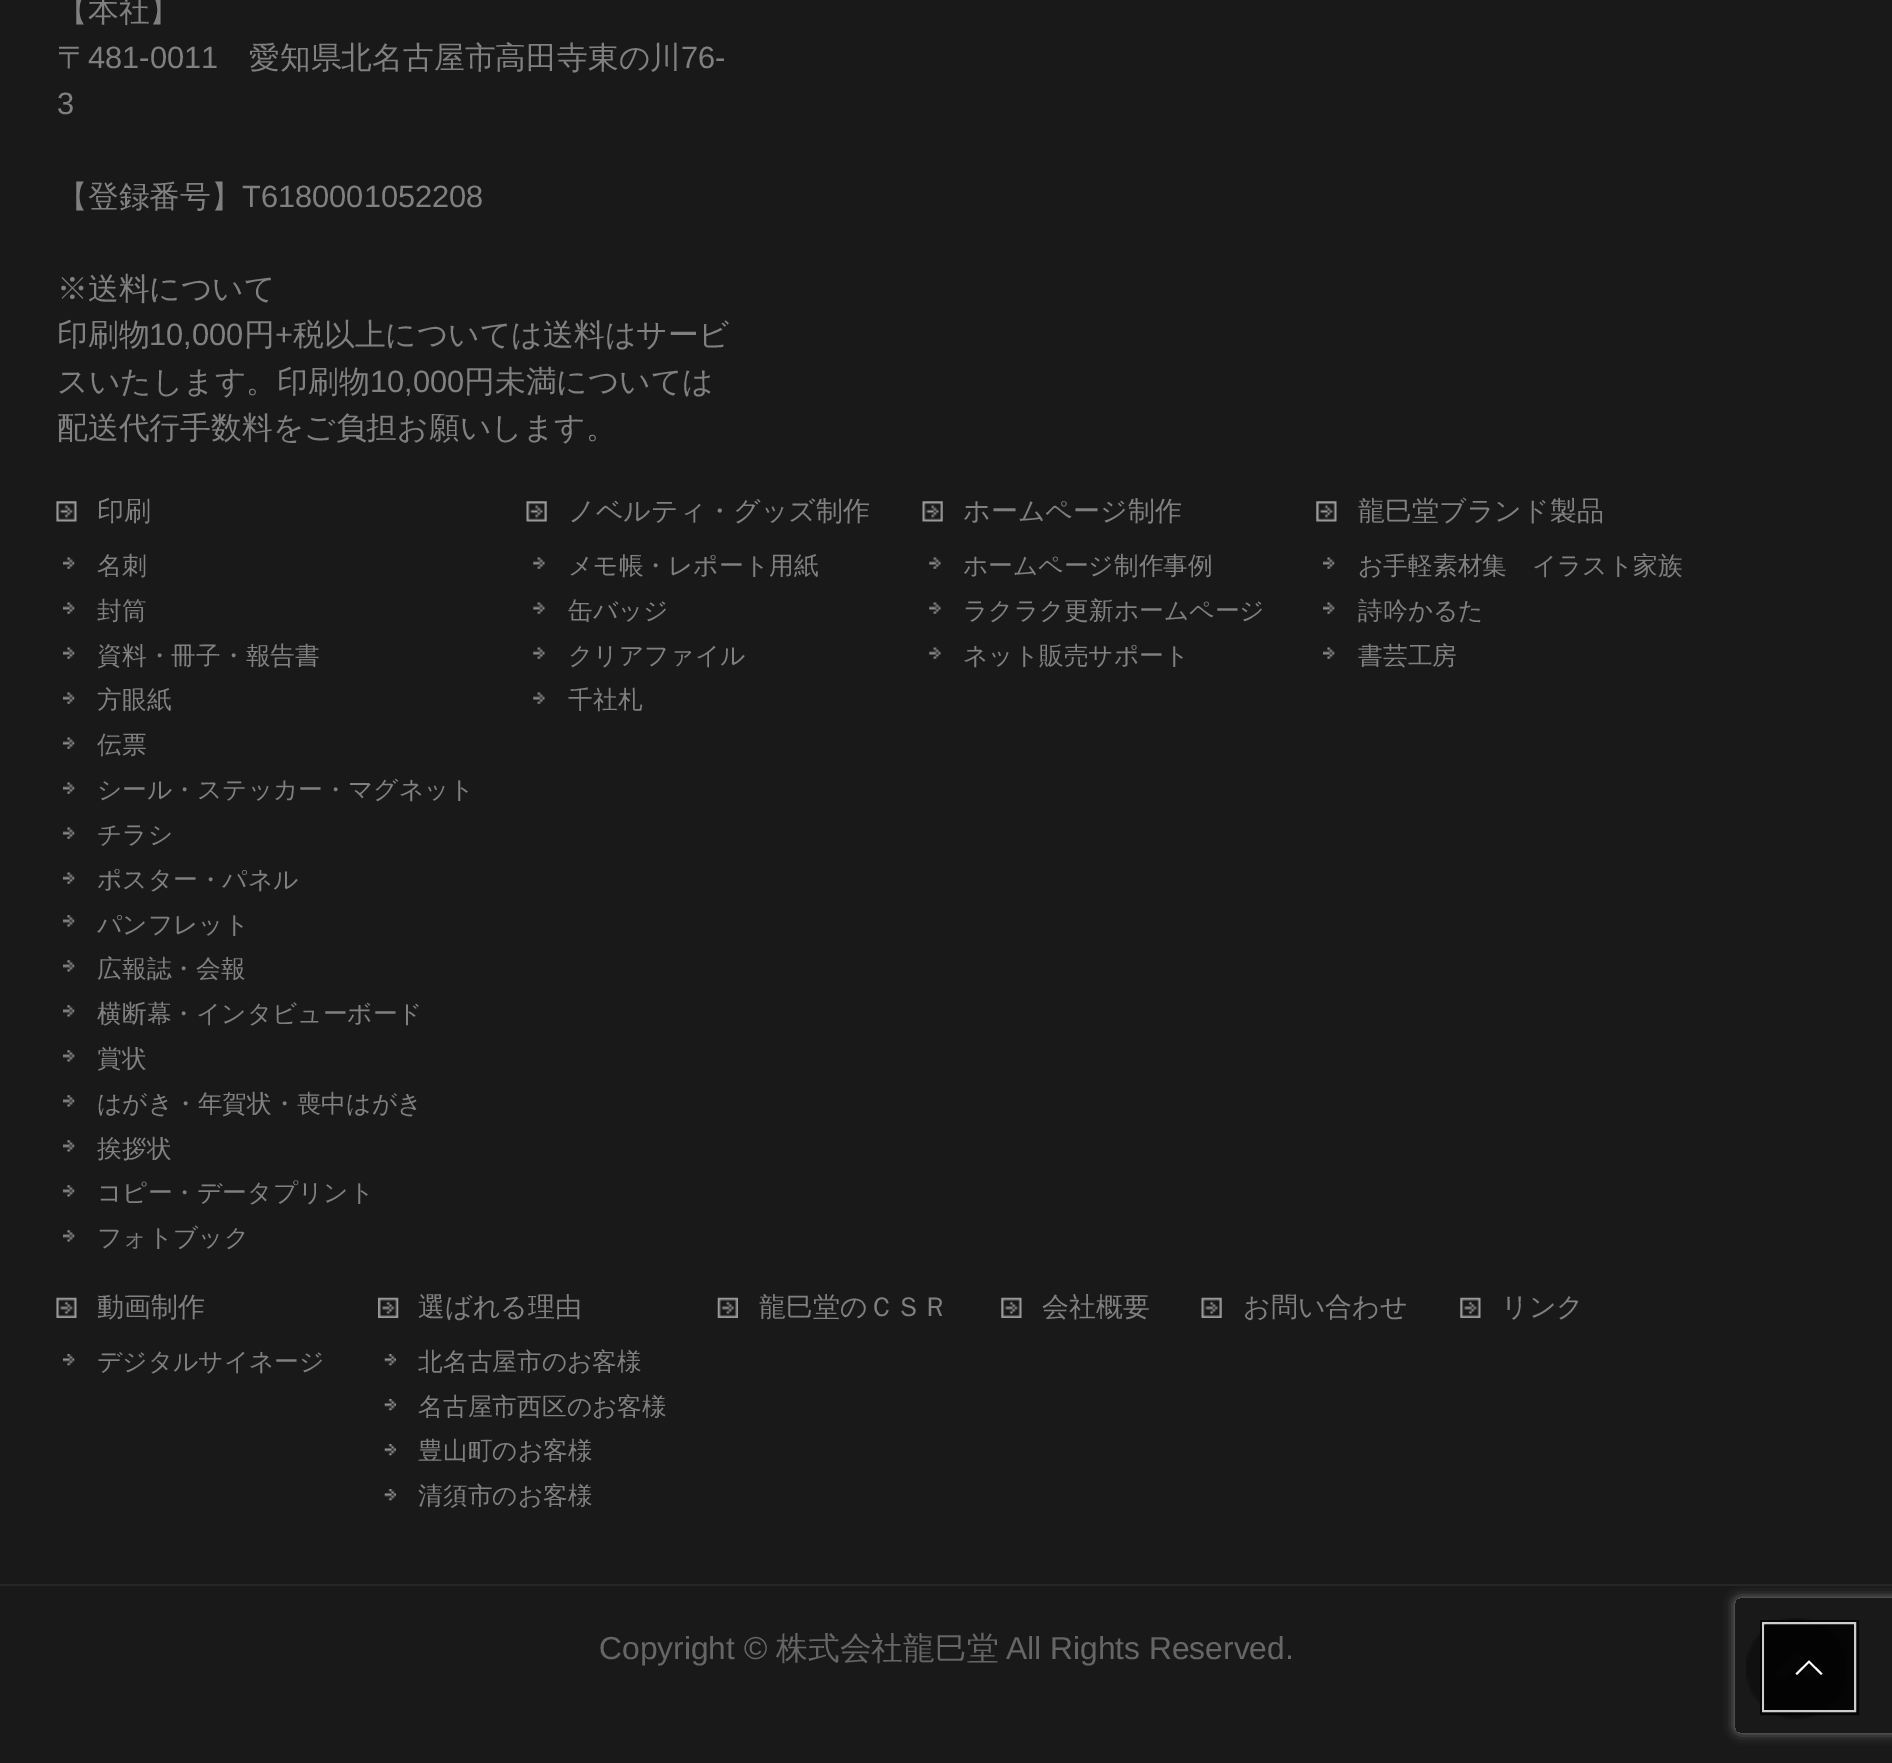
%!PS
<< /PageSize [1892 1763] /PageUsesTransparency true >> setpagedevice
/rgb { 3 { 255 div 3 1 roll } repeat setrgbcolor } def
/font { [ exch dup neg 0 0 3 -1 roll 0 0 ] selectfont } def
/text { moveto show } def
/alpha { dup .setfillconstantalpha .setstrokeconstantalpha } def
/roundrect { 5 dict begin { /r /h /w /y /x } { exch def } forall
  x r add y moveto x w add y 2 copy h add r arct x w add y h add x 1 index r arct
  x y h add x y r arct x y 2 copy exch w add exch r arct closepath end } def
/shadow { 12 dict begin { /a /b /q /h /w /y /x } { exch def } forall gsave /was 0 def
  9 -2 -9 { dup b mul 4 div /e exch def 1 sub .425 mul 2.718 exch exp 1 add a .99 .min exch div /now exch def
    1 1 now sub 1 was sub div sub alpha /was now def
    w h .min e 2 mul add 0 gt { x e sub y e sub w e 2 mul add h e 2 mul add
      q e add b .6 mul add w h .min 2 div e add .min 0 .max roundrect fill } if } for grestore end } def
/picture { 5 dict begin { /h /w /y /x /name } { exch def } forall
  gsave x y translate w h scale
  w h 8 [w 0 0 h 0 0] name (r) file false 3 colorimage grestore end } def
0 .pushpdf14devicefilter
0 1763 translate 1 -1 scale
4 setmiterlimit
25 25 25 rgb
0 0 1892 1763 rectfill
(img_01.rgb) 56 501 21 21 picture
(img_02.rgb) 63 557 12 12 picture
(img_02.rgb) 63 602 12 12 picture
(img_02.rgb) 63 647 12 12 picture
(img_03.rgb) 63 692 12 12 picture
(img_02.rgb) 63 737 12 12 picture
(img_02.rgb) 63 782 12 12 picture
(img_02.rgb) 63 827 12 12 picture
(img_02.rgb) 63 872 12 12 picture
(img_04.rgb) 63 915 12 12 picture
(img_04.rgb) 63 960 12 12 picture
(img_04.rgb) 63 1005 12 12 picture
(img_04.rgb) 63 1050 12 12 picture
(img_04.rgb) 63 1095 12 12 picture
(img_04.rgb) 63 1140 12 12 picture
(img_04.rgb) 63 1185 12 12 picture
(img_04.rgb) 63 1230 12 12 picture
(img_05.rgb) 526 501 21 21 picture
(img_06.rgb) 533 557 12 12 picture
(img_06.rgb) 533 602 12 12 picture
(img_06.rgb) 533 647 12 12 picture
(img_07.rgb) 533 692 12 12 picture
(img_08.rgb) 922 501 21 21 picture
(img_06.rgb) 929 557 12 12 picture
(img_06.rgb) 929 602 12 12 picture
(img_06.rgb) 929 647 12 12 picture
(img_09.rgb) 1316 501 21 21 picture
(img_02.rgb) 1323 557 12 12 picture
(img_02.rgb) 1323 602 12 12 picture
(img_02.rgb) 1323 647 12 12 picture
(img_10.rgb) 56 1297 21 21 picture
(img_11.rgb) 63 1354 12 12 picture
(img_12.rgb) 378 1297 21 21 picture
(img_13.rgb) 384 1354 12 12 picture
(img_13.rgb) 384 1399 12 12 picture
(img_13.rgb) 384 1444 12 12 picture
(img_13.rgb) 384 1489 12 12 picture
(img_14.rgb) 717 1297 21 21 picture
(img_15.rgb) 1001 1297 21 21 picture
(img_16.rgb) 1201 1297 21 21 picture
(img_15.rgb) 1460 1297 21 21 picture
38 38 38 rgb
0 1584 1892 2 rectfill
gsave
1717 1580 moveto 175 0 rlineto 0 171 rlineto -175 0 rlineto closepath 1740 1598 moveto 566 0 rlineto 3 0 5 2 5 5 rcurveto 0 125 rlineto 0 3 -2 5 -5 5 rcurveto -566 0 rlineto -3 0 -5 -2 -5 -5 rcurveto 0 -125 rlineto 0 -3 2 -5 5 -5 rcurveto closepath eoclip newpath
128 128 128 rgb
1735 1598 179 135 5 5.5 1 shadow
grestore
(img_17.rgb) 1746 1618 101 101 picture
0.8 alpha
0 0 0 rgb
5 setlinewidth
1762.5 1622.5 94 90 rectstroke
1 alpha
205 205 205 rgb
2 setlinewidth
1763 1623 92 88 rectstroke
0.8 alpha
0 0 0 rgb
1764 1625 90 85 rectfill
1 alpha
255 255 255 rgb
1822.5 1673.5 moveto -1.5 1.5 rlineto -12 -12 rlineto -12 12 rlineto -1.5 -1.5 rlineto 13.5 -13 rlineto closepath fill
/WenQuanYiZenHei-Medium 30.8 font
128 128 128 rgb
(【本社】) 57 21 text
(〒) 57 68 text
/LiberationSans-Regular 30.8 font
(481-0011) 88 68 text
/WenQuanYiZenHei-Medium 30.8 font
(愛知県北名古屋市高田寺東の川) 249 68 text
/LiberationSans-Regular 30.8 font
(76-) 681 68 text
(3) 57 114 text
/WenQuanYiZenHei-Medium 30.8 font
(【登録番号】) 57 207 text
/LiberationSans-Regular 30.8 font
(T6180001052208) 242 207 text
/WenQuanYiZenHei-Medium 30.8 font
(※送料について) 57 299 text
(印刷物) 57 345 text
/LiberationSans-Regular 30.8 font
(10,000) 149 345 text
/WenQuanYiZenHei-Medium 30.8 font
(円) 244 345 text
/LiberationSans-Regular 30.8 font
(+) 275 345 text
/WenQuanYiZenHei-Medium 30.8 font
(税以上については送料はサービ) 293 345 text
(スいたします。印刷物) 57 392 text
/LiberationSans-Regular 30.8 font
(10,000) 370 392 text
/WenQuanYiZenHei-Medium 30.8 font
(円未満については) 464 392 text
(配送代行手数料をご負担お願いします。) 57 438 text
/WenQuanYiZenHei-Medium 27 font
(印刷) 97 520 text
/WenQuanYiZenHei-Medium 24.75 font
(名刺) 97 574 text
(封筒) 97 619 text
(資料・冊子・報告書) 97 664 text
(方眼紙) 97 708 text
(伝票) 97 753 text
(シール・ステッカー・マグネット) 97 798 text
(チラシ) 97 843 text
(ポスター・パネル) 97 888 text
(パンフレット) 97 933 text
(広報誌・会報) 97 977 text
(横断幕・インタビューボード) 97 1022 text
(賞状) 97 1067 text
(はがき・年賀状・喪中はがき) 97 1112 text
(挨拶状) 97 1157 text
(コピー・データプリント) 97 1201 text
(フォトブック) 97 1246 text
/WenQuanYiZenHei-Medium 27 font
(ノベルティ・グッズ制作) 568 520 text
/WenQuanYiZenHei-Medium 24.75 font
(メモ帳・レポート用紙) 568 574 text
(缶バッジ) 568 619 text
(クリアファイル) 568 664 text
(千社札) 568 708 text
/WenQuanYiZenHei-Medium 27 font
(ホームページ制作) 963 520 text
/WenQuanYiZenHei-Medium 24.75 font
(ホームページ制作事例) 963 574 text
(ラクラク更新ホームページ) 963 619 text
(ネット販売サポート) 963 664 text
/WenQuanYiZenHei-Medium 27 font
(龍巳堂ブランド製品) 1358 520 text
/WenQuanYiZenHei-Medium 24.75 font
(お手軽素材集　イラスト家族) 1358 574 text
(詩吟かるた) 1358 619 text
(書芸工房) 1358 664 text
/WenQuanYiZenHei-Medium 27 font
(動画制作) 97 1316 text
/WenQuanYiZenHei-Medium 24.75 font
(デジタルサイネージ) 97 1370 text
gsave
378 1294 333 40 rectclip
/WenQuanYiZenHei-Medium 27 font
(選ばれる理由) 418 1316 text
grestore
(北名古屋市のお客様) 418 1370 text
(名古屋市西区のお客様) 418 1415 text
(豊山町のお客様) 418 1459 text
(清須市のお客様) 418 1504 text
gsave
718 1294 277 40 rectclip
/WenQuanYiZenHei-Medium 27 font
(龍巳堂のＣＳＲ) 759 1316 text
grestore
gsave
1001 1294 194 40 rectclip
/WenQuanYiZenHei-Medium 27 font
(会社概要) 1042 1316 text
grestore
/WenQuanYiZenHei-Medium 27 font
(お問い合わせ) 1243 1316 text
(リンク) 1501 1316 text
/LiberationSans-Regular 31.75 font
102 102 102 rgb
(Copyright ©) 599 1659 text
/WenQuanYiZenHei-Medium 31.75 font
(株式会社龍巳堂) 776 1659 text
/LiberationSans-Regular 31.75 font
(All Rights Reserved.) 1006 1659 text
.poppdf14devicefilter showpage
